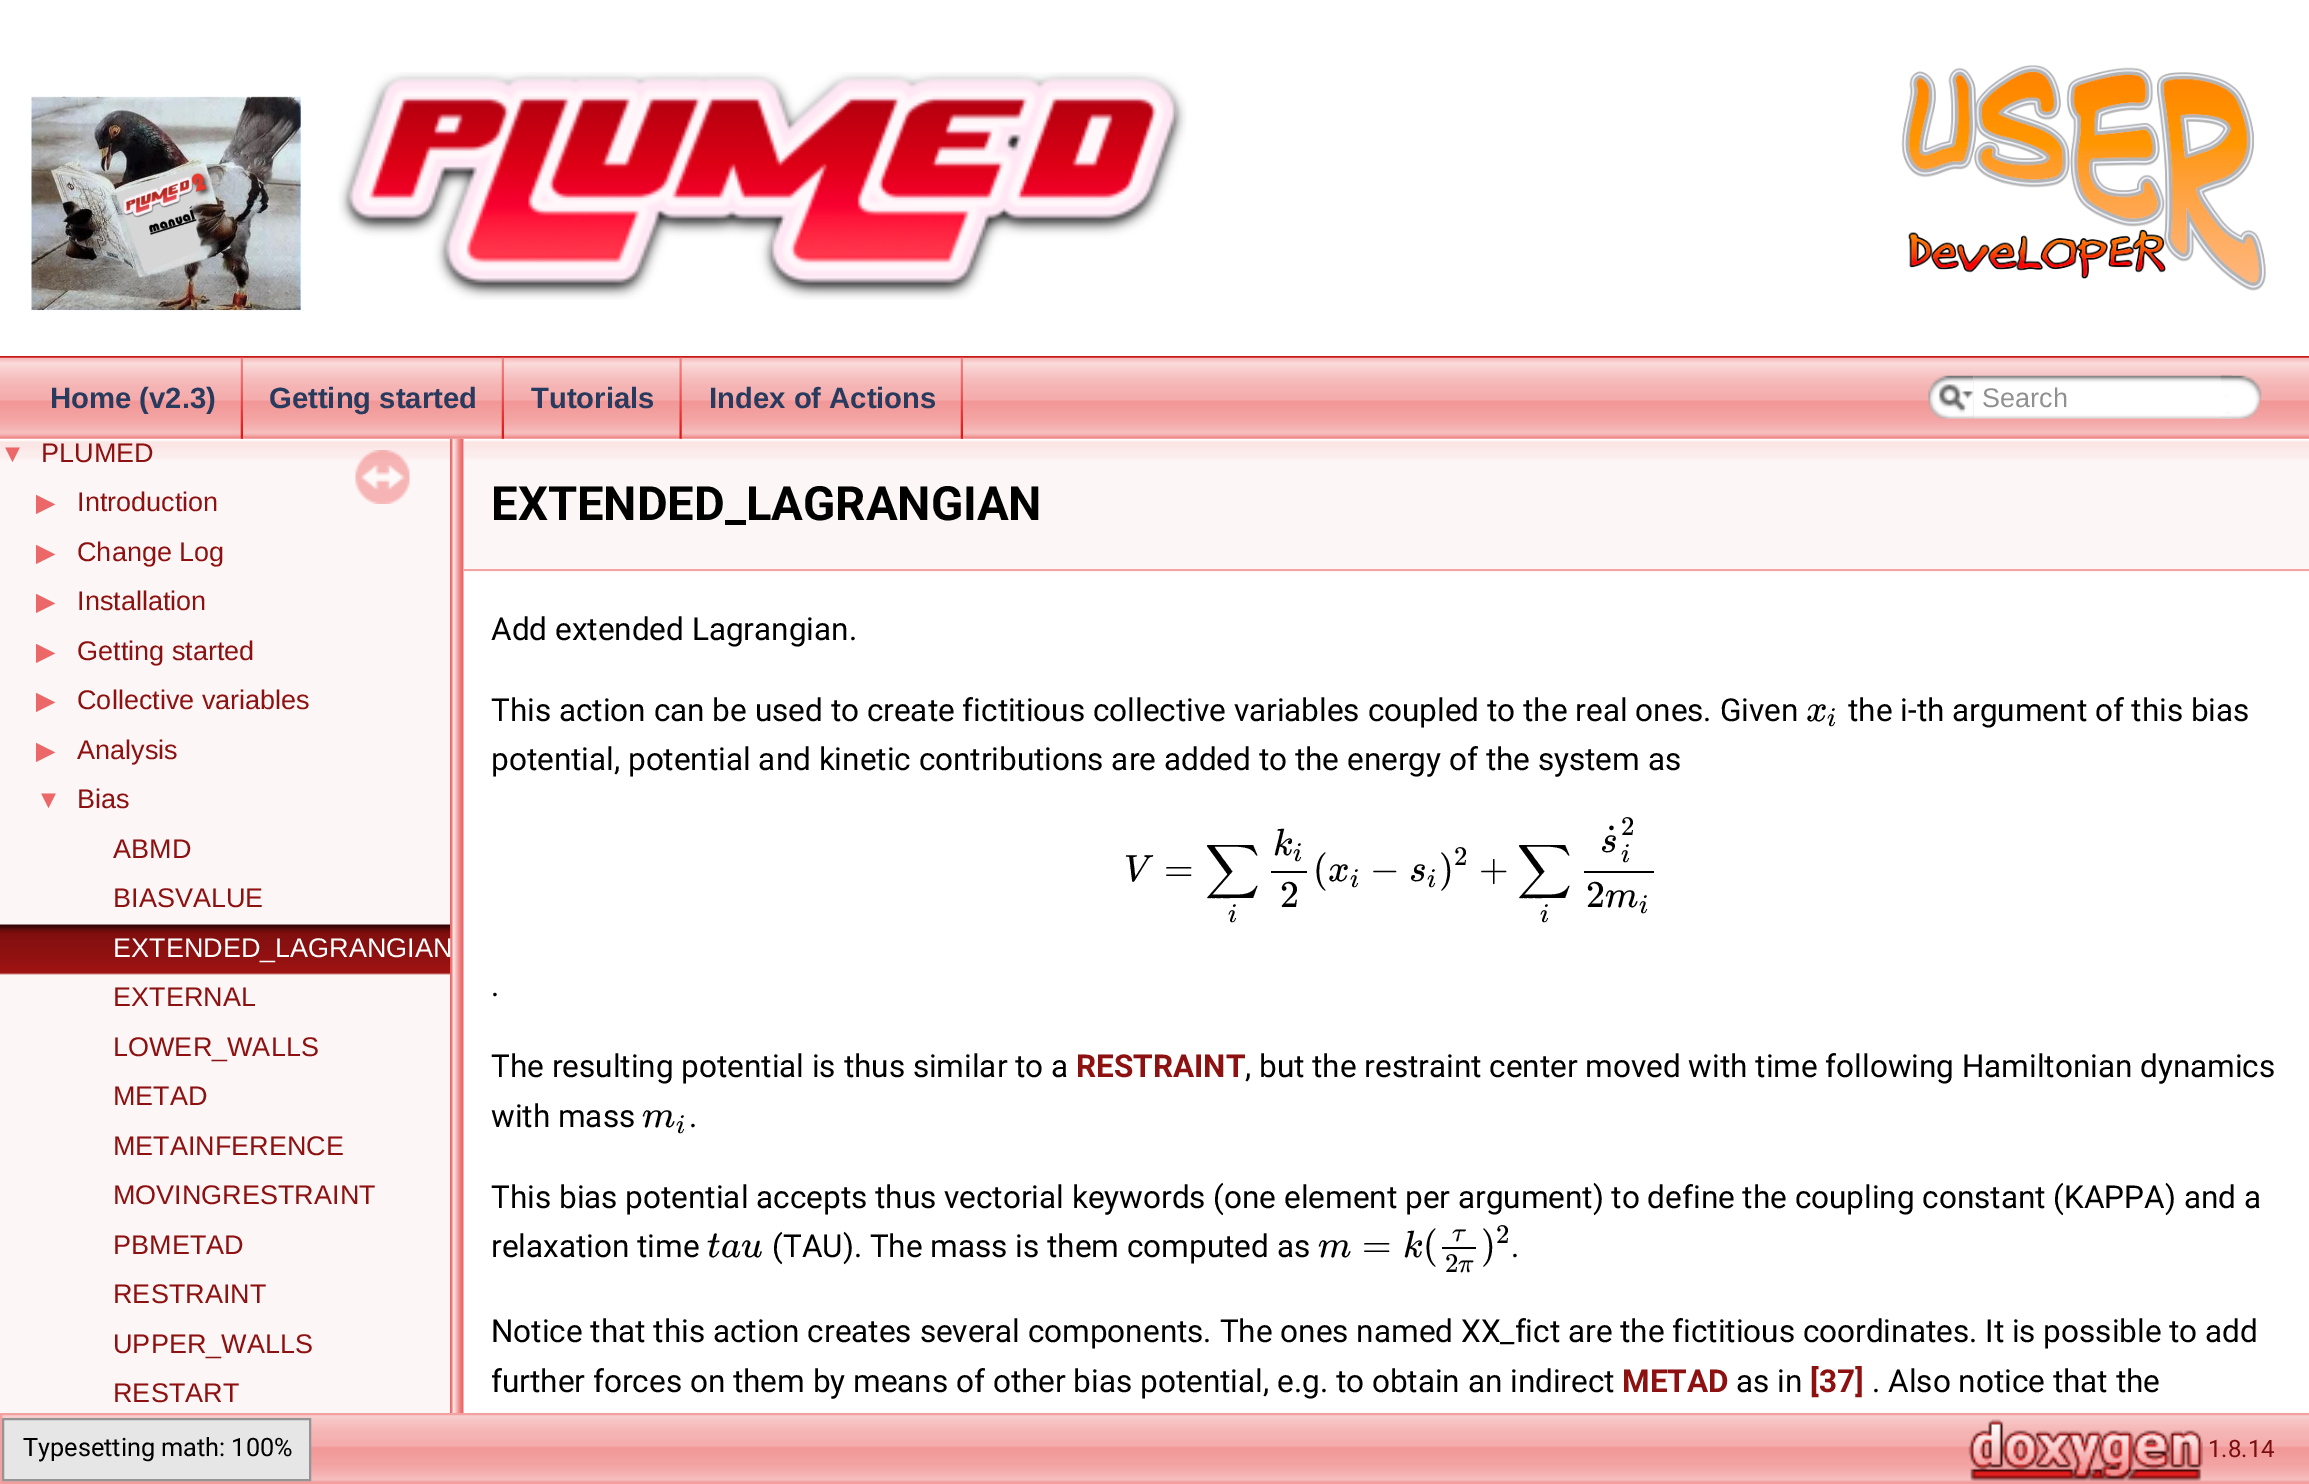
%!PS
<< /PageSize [2309 1484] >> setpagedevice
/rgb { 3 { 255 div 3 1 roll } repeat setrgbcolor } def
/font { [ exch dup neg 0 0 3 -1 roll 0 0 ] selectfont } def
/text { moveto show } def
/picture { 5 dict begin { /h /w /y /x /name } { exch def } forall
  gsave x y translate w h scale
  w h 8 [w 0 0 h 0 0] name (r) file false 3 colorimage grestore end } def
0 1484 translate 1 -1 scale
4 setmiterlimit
255 255 255 rgb
0 0 2309 1484 rectfill
199 24 24 rgb
0 356 2309 2 rectfill
(img_01.rgb) 31 96 270 215 picture
(img_02.rgb) 338 72 849 228 picture
(img_03.rgb) 1901 65 365 226 picture
(img_15.rgb) 463 439 1846 21 picture
(img_14.rgb) 450 438 14 975 picture
(img_04.rgb) 0 357 2309 82 picture
(img_05.rgb) 240 357 3 82 picture
(img_05.rgb) 501 357 3 82 picture
(img_06.rgb) 679 357 3 82 picture
(img_05.rgb) 960 357 3 82 picture
(img_07.rgb) 1928 375 46 44 picture
(img_08.rgb) 1939 384 35 29 picture
(img_09.rgb) 1973 375 259 44 picture
(img_10.rgb) 2220 375 42 44 picture
253 246 246 rgb
0 460 450 953 rectfill
(img_11.rgb) 0 439 450 21 picture
(img_12.rgb) 0 924 450 51 picture
(img_13.rgb) 355 450 55 54 picture
464 460 1845 112 rectfill
244 163 163 rgb
464 569 1845 2 rectfill
0 0 0 rgb
1271 871 36 2 rectfill
1584 871 70 2 rectfill
1442 1247 34 2 rectfill
(img_16.rgb) 2 1415 2307 68 picture
243 160 160 rgb
2 setlinewidth
1 1414 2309 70 rectstroke
230 230 230 rgb
3 1419 moveto 307 0 rlineto 0 61 rlineto -307 0 rlineto closepath gsave fill grestore
149 149 149 rgb
stroke
(img_17.rgb) 1968 1419 235 63 picture
/LiberationSans-Bold 29.25 font
40 58 93 rgb
(Home \(v2.3\)) 50 408 text
(Getting started) 269 408 text
(Tutorials) 531 408 text
(Index of Actions) 709 408 text
/LiberationSans-Regular 27 font
144 144 144 rgb
(Search) 1982 407 text
/LiberationSans-Regular 25.25 font
236 103 103 rgb
(▼) 0 462 text
/LiberationSans-Regular 27 font
142 17 17 rgb
(PLUMED) 41 462 text
/DejaVuSans-Regular 25.25 font
236 103 103 rgb
(▶) 36 511 text
/LiberationSans-Regular 27 font
142 17 17 rgb
(Introduction) 77 511 text
/DejaVuSans-Regular 25.25 font
236 103 103 rgb
(▶) 36 561 text
/LiberationSans-Regular 27 font
142 17 17 rgb
(Change Log) 77 561 text
/DejaVuSans-Regular 25.25 font
236 103 103 rgb
(▶) 36 610 text
/LiberationSans-Regular 27 font
142 17 17 rgb
(Installation) 77 610 text
/DejaVuSans-Regular 25.25 font
236 103 103 rgb
(▶) 36 660 text
/LiberationSans-Regular 27 font
142 17 17 rgb
(Getting started) 77 660 text
/DejaVuSans-Regular 25.25 font
236 103 103 rgb
(▶) 36 709 text
/LiberationSans-Regular 27 font
142 17 17 rgb
(Collective variables) 77 709 text
/DejaVuSans-Regular 25.25 font
236 103 103 rgb
(▶) 36 759 text
/LiberationSans-Regular 27 font
142 17 17 rgb
(Analysis) 77 759 text
/LiberationSans-Regular 25.25 font
236 103 103 rgb
(▼) 36 808 text
/LiberationSans-Regular 27 font
142 17 17 rgb
(Bias) 77 808 text
(ABMD) 113 858 text
(BIASVALUE) 113 907 text
255 255 255 rgb
(EXTENDED_LAGRANGIAN) 113 957 text
142 17 17 rgb
(EXTERNAL) 113 1006 text
(LOWER_WALLS) 113 1056 text
(METAD) 113 1105 text
(METAINFERENCE) 113 1155 text
(MOVINGRESTRAINT) 113 1204 text
(PBMETAD) 113 1254 text
(RESTRAINT) 113 1303 text
(UPPER_WALLS) 113 1353 text
(RESTART) 113 1402 text
/Roboto-Bold 47.25 font
0 0 0 rgb
(EXTENDED_LAGRANGIAN) 491 520 text
/Roboto-Regular 31.5 font
(Add extended Lagrangian.) 491 640 text
(This action can be used to create fictitious collective variables coupled to the real ones. Given) 491 721 text
/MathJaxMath-Italic 38 font
(x) 1806 721 text
/MathJaxMath-Italic 27 font
(i) 1827 726 text
/Roboto-Regular 31.5 font
(the i-th argument of this bias) 1848 721 text
(potential, potential and kinetic contributions are added to the energy of the system as) 491 770 text
/MathJaxMath-Italic 38 font
(V) 1124 881 text
/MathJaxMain-Regular 38 font
(=) 1164 881 text
/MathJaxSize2-Regular 38 font
(∑) 1205 881 text
/MathJaxMath-Italic 27 font
(i) 1228 922 text
/MathJaxMath-Italic 38 font
(k) 1273 855 text
/MathJaxMath-Italic 27 font
(i) 1293 861 text
/MathJaxMain-Regular 38 font
(2) 1280 907 text
(\() 1313 881 text
/MathJaxMath-Italic 38 font
(x) 1328 881 text
/MathJaxMath-Italic 27 font
(i) 1350 887 text
/MathJaxMain-Regular 38 font
(−) 1370 881 text
/MathJaxMath-Italic 38 font
(s) 1409 881 text
/MathJaxMath-Italic 27 font
(i) 1427 887 text
/MathJaxMain-Regular 38 font
(\)) 1439 881 text
/MathJaxMain-Regular 27 font
(2) 1454 865 text
/MathJaxMain-Regular 38 font
(+) 1479 881 text
/MathJaxSize2-Regular 38 font
(∑) 1517 881 text
/MathJaxMath-Italic 27 font
(i) 1540 922 text
/MathJaxMain-Regular 38 font
(˙) 1602 851 text
/MathJaxMath-Italic 38 font
(s) 1600 852 text
/MathJaxMain-Regular 27 font
(2) 1621 835 text
/MathJaxMath-Italic 27 font
(i) 1621 862 text
/MathJaxMain-Regular 38 font
(2) 1586 907 text
/MathJaxMath-Italic 38 font
(m) 1605 907 text
/MathJaxMath-Italic 27 font
(i) 1639 913 text
/Roboto-Regular 31.5 font
(.) 491 996 text
(The resulting potential is thus similar to a) 491 1077 text
/Roboto-Bold 31.5 font
142 17 17 rgb
(RESTRAINT) 1076 1077 text
/Roboto-Regular 31.5 font
0 0 0 rgb
(, but the restraint center moved with time following Hamiltonian dynamics) 1245 1077 text
(with mass) 491 1127 text
/MathJaxMath-Italic 38 font
(m) 642 1127 text
/MathJaxMath-Italic 27 font
(i) 676 1133 text
/Roboto-Regular 31.5 font
(.) 689 1127 text
(This bias potential accepts thus vectorial keywords \(one element per argument\) to define the coupling constant \(KAPPA\) and a) 491 1208 text
(relaxation time) 491 1257 text
/MathJaxMath-Italic 38 font
(tau) 707 1257 text
/Roboto-Regular 31.5 font
(\(TAU\). The mass is them computed as) 772 1257 text
/MathJaxMath-Italic 38 font
(m) 1318 1257 text
/MathJaxMain-Regular 38 font
(=) 1362 1257 text
/MathJaxMath-Italic 38 font
(k) 1403 1257 text
/MathJaxMain-Regular 38 font
(\() 1423 1257 text
/MathJaxMath-Italic 27 font
(τ) 1452 1241 text
/MathJaxMain-Regular 27 font
(2) 1445 1272 text
/MathJaxMath-Italic 27 font
(π) 1458 1272 text
/MathJaxMain-Regular 38 font
(\)) 1481 1257 text
/MathJaxMain-Regular 27 font
(2) 1496 1243 text
/Roboto-Regular 31.5 font
(.) 1511 1257 text
(Notice that this action creates several components. The ones named XX_fict are the fictitious coordinates. It is possible to add) 491 1342 text
(further forces on them by means of other bias potential, e.g. to obtain an indirect) 491 1392 text
/Roboto-Bold 31.5 font
142 17 17 rgb
(METAD) 1622 1392 text
/Roboto-Regular 31.5 font
0 0 0 rgb
(as in) 1736 1392 text
/Roboto-Bold 31.5 font
142 17 17 rgb
([37]) 1810 1392 text
/Roboto-Regular 31.5 font
0 0 0 rgb
(. Also notice that the) 1872 1392 text
/Roboto-Regular 25.25 font
(Typesetting math: 100%) 23 1456 text
/Roboto-Regular 24 font
123 14 14 rgb
(1.8.14) 2208 1457 text
showpage
